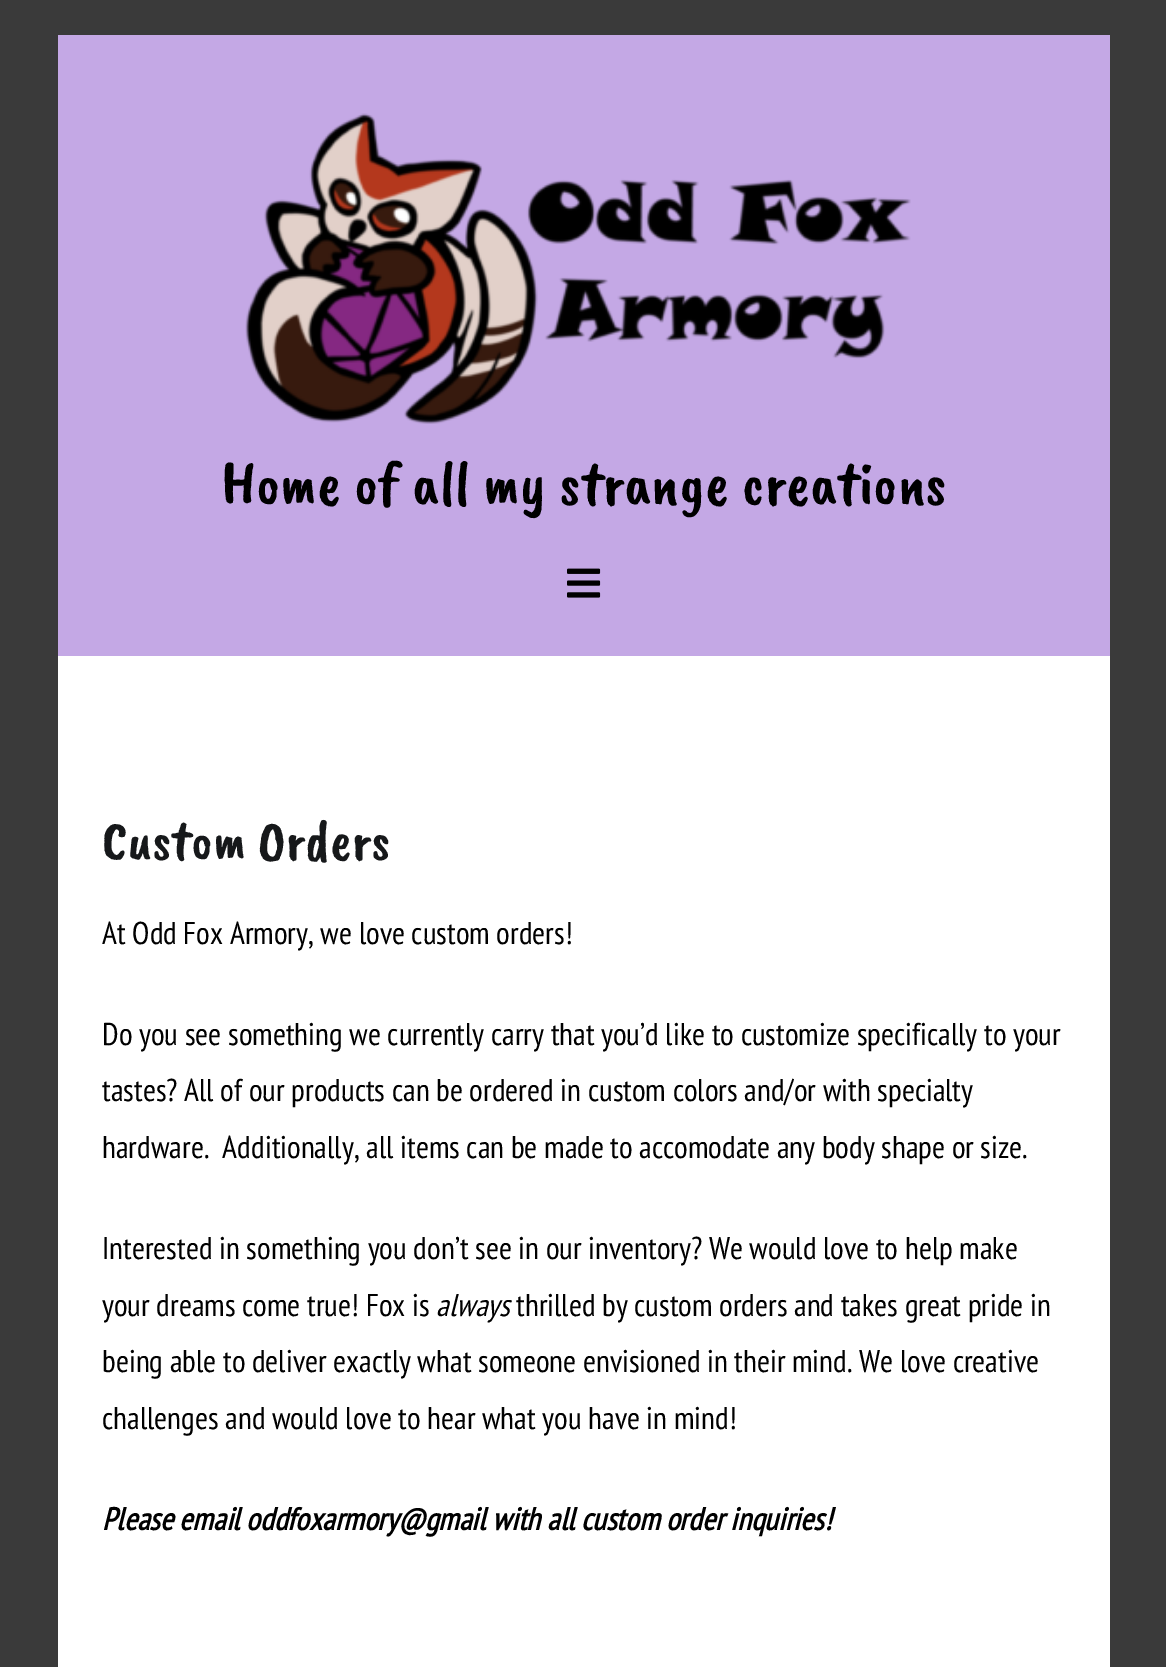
%!PS
<< /PageSize [1166 1667] >> setpagedevice
/rgb { 3 { 255 div 3 1 roll } repeat setrgbcolor } def
/font { [ exch dup neg 0 0 3 -1 roll 0 0 ] selectfont } def
/text { moveto show } def
/picture { 5 dict begin { /h /w /y /x /name } { exch def } forall
  gsave x y translate w h scale
  w h 8 [w 0 0 h 0 0] name (r) file false 3 colorimage grestore end } def
0 1667 translate 1 -1 scale
4 setmiterlimit
58 58 58 rgb
0 0 1166 1667 rectfill
255 255 255 rgb
58 656 1052 1011 rectfill
196 168 229 rgb
58 35 1052 621 rectfill
(img_01.rgb) 245 113 666 311 picture
(img_02.rgb) 567 568 34 30 picture
/CaveatBrush-Regular 63 font
0 0 0 rgb
(Home of all my strange creations) 221 504 text
/CaveatBrush-Regular 56.75 font
22 24 26 rgb
(Custom Orders) 102 859 text
/PTSansNarrow-Regular 31.5 font
0 0 0 rgb
(At Odd Fox Armory, we love custom orders!) 102 944 text
(Do you see something we currently carry that you’d like to customize specifically to your) 102 1045 text
(tastes? All of our products can be ordered in custom colors and/or with specialty) 102 1101 text
(hardware.  Additionally, all items can be made to accomodate any body shape or size.) 102 1158 text
(Interested in something you don’t see in our inventory? We would love to help make) 102 1259 text
(your dreams come true! Fox is) 102 1316 text
/PTSansNarrow-Italic 31.5 font
(always) 436 1316 text
/PTSansNarrow-Regular 31.5 font
(thrilled by custom orders and takes great pride in) 516 1316 text
(being able to deliver exactly what someone envisioned in their mind. We love creative) 102 1372 text
(challenges and would love to hear what you have in mind!) 102 1429 text
/PTSansNarrow-BoldItalic 31.5 font
(Please email oddfoxarmory@gmail with all custom order inquiries!) 102 1530 text
showpage
